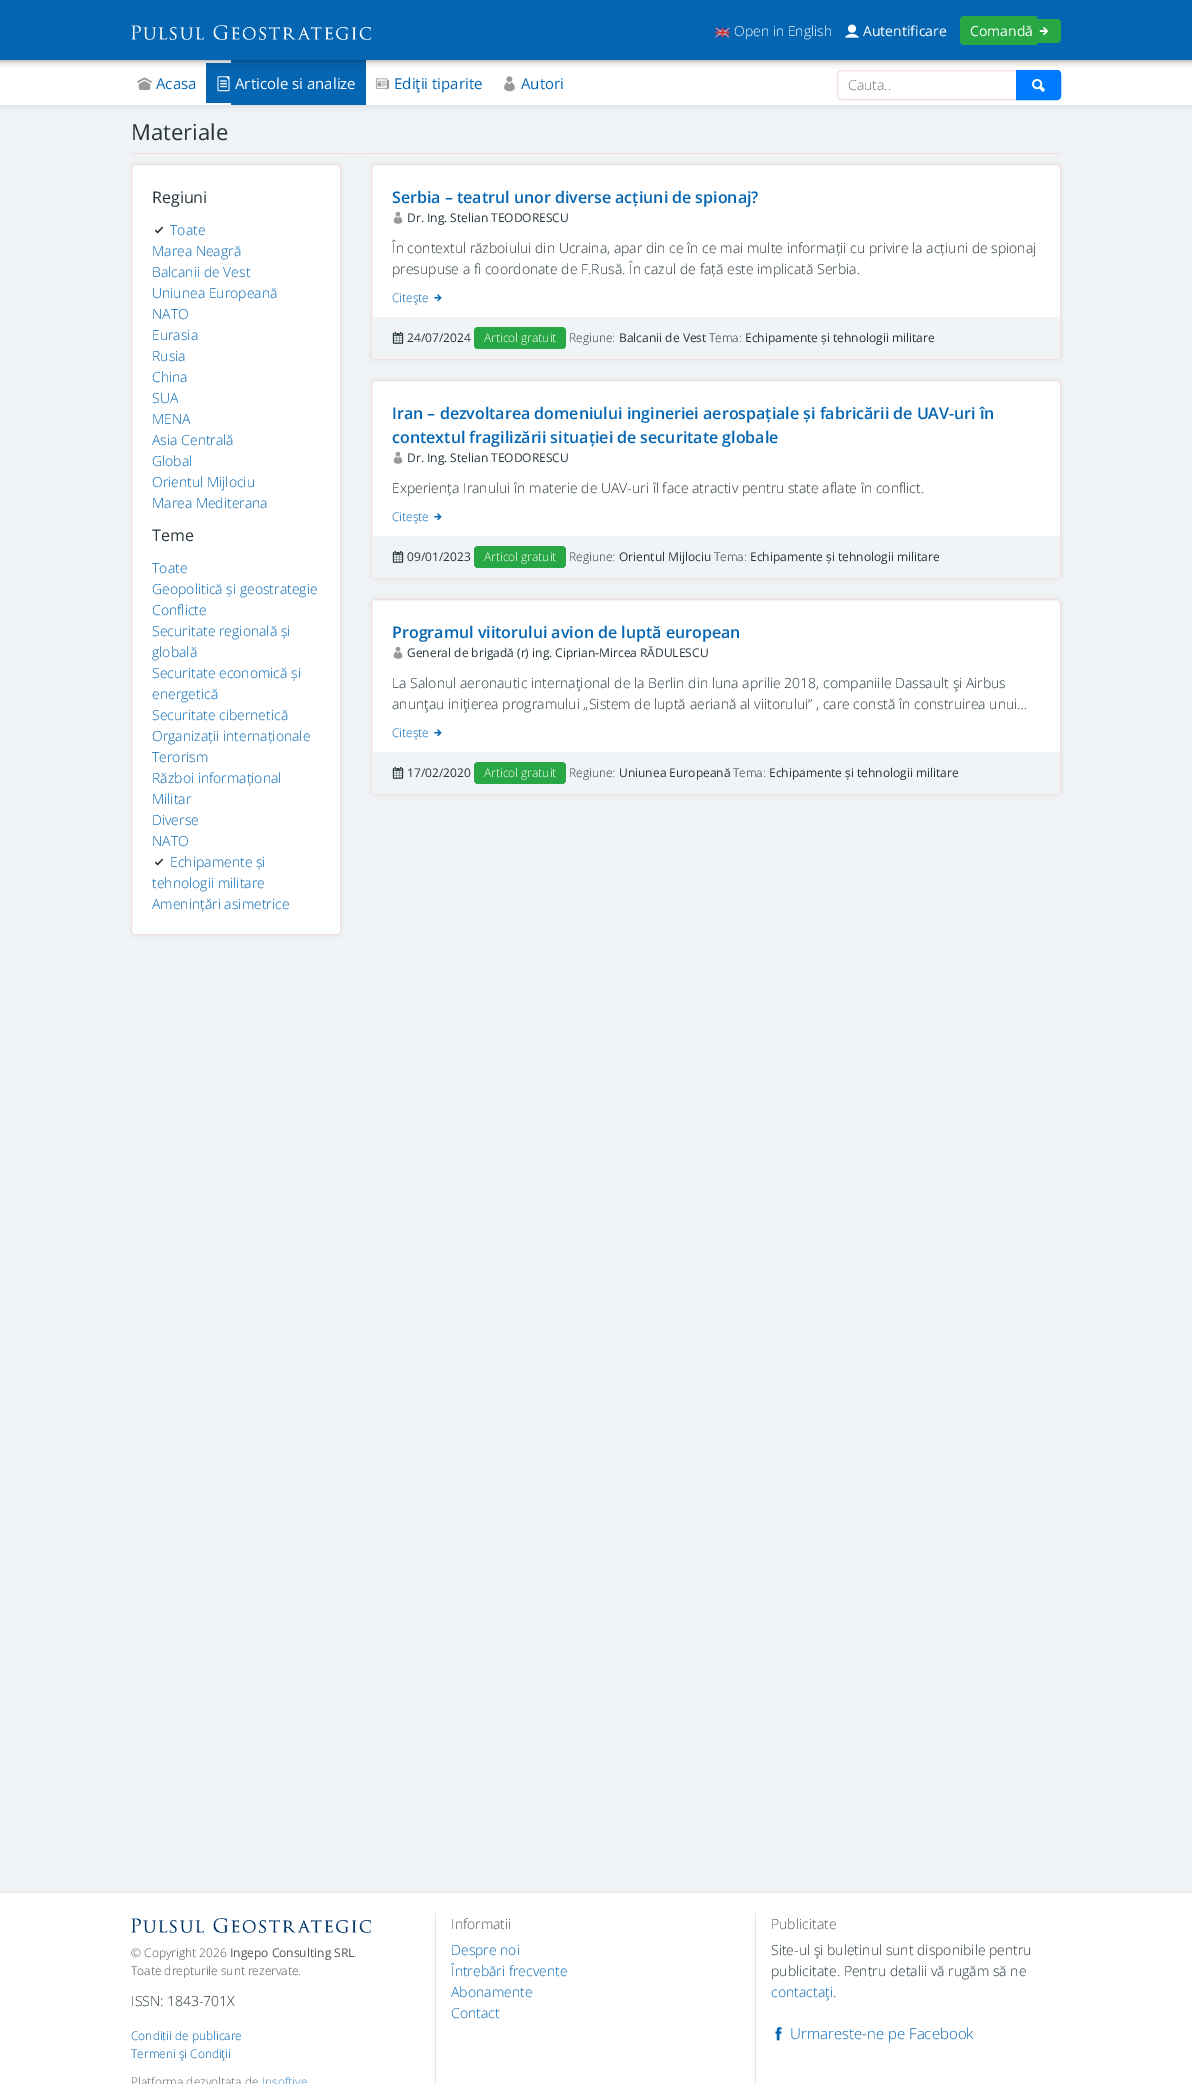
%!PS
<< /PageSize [1192 2084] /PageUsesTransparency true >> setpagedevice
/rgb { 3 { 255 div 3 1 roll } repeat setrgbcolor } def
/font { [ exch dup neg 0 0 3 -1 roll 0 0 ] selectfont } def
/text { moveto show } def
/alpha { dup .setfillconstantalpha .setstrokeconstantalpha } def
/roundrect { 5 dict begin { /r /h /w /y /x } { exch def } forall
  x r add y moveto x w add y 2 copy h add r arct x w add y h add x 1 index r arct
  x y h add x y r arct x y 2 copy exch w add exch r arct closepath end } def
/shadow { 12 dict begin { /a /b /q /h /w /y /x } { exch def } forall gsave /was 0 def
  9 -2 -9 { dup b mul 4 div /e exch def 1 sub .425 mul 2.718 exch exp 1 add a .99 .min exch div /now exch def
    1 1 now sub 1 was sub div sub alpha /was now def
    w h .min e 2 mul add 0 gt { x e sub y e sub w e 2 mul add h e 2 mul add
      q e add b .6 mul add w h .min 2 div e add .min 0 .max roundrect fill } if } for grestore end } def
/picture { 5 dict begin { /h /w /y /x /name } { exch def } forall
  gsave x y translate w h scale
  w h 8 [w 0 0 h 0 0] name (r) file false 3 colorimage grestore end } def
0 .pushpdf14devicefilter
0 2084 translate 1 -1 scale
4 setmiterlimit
241 244 246 rgb
0 0 1192 2084 rectfill
0 0 0 rgb
0 60 1192 45 0 4 0.15 shadow
255 255 255 rgb
0 60 1192 45 rectfill
4 101 178 rgb
206 63 25 40 rectfill
231 60 135 45 rectfill
240 223 220 rgb
837.5 70.5 223 29 3.5 roundrect stroke
0 123 255 rgb
1016.5 70.5 moveto 40.5 0 rlineto 2 0 3.5 1.5 3.5 3.5 rcurveto 0 22 rlineto 0 2 -1.5 3.5 -3.5 3.5 rcurveto -40.5 0 rlineto closepath gsave fill grestore
stroke
0 0 0 rgb
0 0 1192 60 0 4 0.5 shadow
4 101 178 rgb
0 0 1192 60 rectfill
(img_01.rgb) 131 25 240 15 picture
(img_02.rgb) 715 27 15 11 picture
(img_03.rgb) 845 24 14 14 picture
40 167 69 rgb
964 16 moveto 73 0 rlineto 0 29 rlineto -73 0 rlineto -2 0 -4 -2 -4 -4 rcurveto 0 -21 rlineto 0 -2 2 -4 4 -4 rcurveto closepath fill
1037 19 moveto 20 0 rlineto 2 0 4 2 4 4 rcurveto 0 16 rlineto 0 2 -2 4 -4 4 rcurveto -20 0 rlineto closepath fill
(img_04.rgb) 1039 27 10 9 picture
(img_05.rgb) 137 77 15 14 picture
(img_06.rgb) 217 76 13 16 picture
(img_07.rgb) 375 78 15 12 picture
(img_08.rgb) 504 76 11 16 picture
(img_09.rgb) 1032 79 13 13 picture
240 223 220 rgb
131 153 930 1 rectfill
0 0 0 rgb
131 164 210 771 4 4 0.05 shadow
255 255 255 rgb
131.5 164.5 209 770 3.5 roundrect gsave fill grestore
240 223 220 rgb
stroke
(img_10.rgb) 154 226 10 8 picture
(img_10.rgb) 154 858 10 8 picture
0 0 0 rgb
371 164 690 196 4 4 0.05 shadow
255 255 255 rgb
371.5 164.5 689 195 3.5 roundrect gsave fill grestore
240 223 220 rgb
stroke
(img_11.rgb) 393 211 10 13 picture
(img_12.rgb) 434 294 8 8 picture
241 244 246 rgb
372 317 688 42 rectfill
(img_13.rgb) 392 331 12 13 picture
40 167 69 rgb
474 327 92 22 4 roundrect fill
0 0 0 rgb
371 380 690 199 4 4 0.05 shadow
255 255 255 rgb
371.5 380.5 689 198 3.5 roundrect gsave fill grestore
240 223 220 rgb
stroke
(img_11.rgb) 393 451 10 13 picture
(img_12.rgb) 434 513 8 8 picture
241 244 246 rgb
372 536 688 42 rectfill
(img_13.rgb) 392 550 12 13 picture
40 167 69 rgb
474 546 92 22 4 roundrect fill
0 0 0 rgb
371 599 690 196 4 4 0.05 shadow
255 255 255 rgb
371.5 599.5 689 195 3.5 roundrect gsave fill grestore
240 223 220 rgb
stroke
(img_11.rgb) 393 646 10 13 picture
(img_12.rgb) 434 729 8 8 picture
241 244 246 rgb
372 752 688 42 rectfill
(img_13.rgb) 392 766 12 13 picture
40 167 69 rgb
474 762 92 22 4 roundrect fill
0 0 0 rgb
0 1893 1192 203 0 4 0.05 shadow
255 255 255 rgb
0 1893 1192 191 rectfill
240 223 220 rgb
435 1913 1 171 rectfill
(img_14.rgb) 131 1918 240 15 picture
755 1913 1 171 rectfill
(img_15.rgb) 775 2027 7 14 picture
/OpenSans-Light 14 font
255 255 255 rgb
(Open in English) 734 36 text
/OpenSans-Regular 14 font
(Autentificare) 863 36 text
(Comandă) 970 36 text
/OpenSans-Regular 15 font
4 101 178 rgb
(Acasa) 156 89 text
255 255 255 rgb
(Articole si analize) 235 89 text
4 101 178 rgb
(Ediţii tiparite) 394 89 text
(Autori) 521 89 text
/OpenSans-Light 14 font
108 117 125 rgb
(Cauta..) 848 90 text
/OpenSans-Regular 22 font
39 53 60 rgb
(Materiale) 131 140 text
/OpenSans-Regular 16 font
(Regiuni) 152 203 text
/OpenSans-Light 14 font
4 101 178 rgb
(Toate) 170 235 text
(Marea Neagră) 152 256 text
(Balcanii de Vest) 152 277 text
(Uniunea Europeană) 152 298 text
(NATO) 152 319 text
(Eurasia) 152 340 text
(Rusia) 152 361 text
(China) 152 382 text
(SUA) 152 403 text
(MENA) 152 424 text
(Asia Centrală) 152 445 text
(Global) 152 466 text
(Orientul Mijlociu) 152 487 text
(Marea Mediterana) 152 508 text
/OpenSans-Regular 16 font
39 53 60 rgb
(Teme) 152 541 text
/OpenSans-Light 14 font
4 101 178 rgb
(Toate) 152 573 text
(Geopolitică și geostrategie) 152 594 text
(Conflicte) 152 615 text
(Securitate regională și) 152 636 text
(globală) 152 657 text
(Securitate economică și) 152 678 text
(energetică) 152 699 text
(Securitate cibernetică) 152 720 text
(Organizații internaționale) 152 741 text
(Terorism) 152 762 text
(Război informațional) 152 783 text
(Militar) 152 804 text
(Diverse) 152 825 text
(NATO) 152 846 text
(Echipamente și) 170 867 text
(tehnologii militare) 152 888 text
(Amenințări asimetrice) 152 909 text
/OpenSans-SemiBold 16 font
(Serbia – teatrul unor diverse acțiuni de spionaj?) 392 203 text
/OpenSans-Regular 12 font
39 53 60 rgb
(Dr. Ing. Stelian TEODORESCU) 407 222 text
/OpenSans-Light 14 font
(În contextul războiului din Ucraina, apar din ce în ce mai multe informații cu privire la acțiuni de spionaj) 392 253 text
(presupuse a fi coordonate de F.Rusă. În cazul de față este implicată Serbia.) 392 274 text
/OpenSans-Light 12 font
4 101 178 rgb
(Citeşte) 392 302 text
/OpenSans-Regular 12 font
39 53 60 rgb
(24/07/2024) 407 342 text
/OpenSans-Light 12 font
255 255 255 rgb
(Articol gratuit) 484 342 text
39 53 60 rgb
(Regiune:) 569 342 text
/OpenSans-Regular 12 font
(Balcanii de Vest) 619 342 text
/OpenSans-Light 12 font
(Tema:) 709 342 text
/OpenSans-Regular 12 font
(Echipamente și tehnologii militare) 745 342 text
/OpenSans-SemiBold 16 font
4 101 178 rgb
(Iran – dezvoltarea domeniului ingineriei aerospațiale și fabricării de UAV-uri în) 392 419 text
(contextul fragilizării situației de securitate globale) 392 443 text
/OpenSans-Regular 12 font
39 53 60 rgb
(Dr. Ing. Stelian TEODORESCU) 407 462 text
/OpenSans-Light 14 font
(Experiența Iranului în materie de UAV-uri îl face atractiv pentru state aflate în conflict.) 392 493 text
/OpenSans-Light 12 font
4 101 178 rgb
(Citeşte) 392 521 text
/OpenSans-Regular 12 font
39 53 60 rgb
(09/01/2023) 407 561 text
/OpenSans-Light 12 font
255 255 255 rgb
(Articol gratuit) 484 561 text
39 53 60 rgb
(Regiune:) 569 561 text
/OpenSans-Regular 12 font
(Orientul Mijlociu) 619 561 text
/OpenSans-Light 12 font
(Tema:) 714 561 text
/OpenSans-Regular 12 font
(Echipamente și tehnologii militare) 750 561 text
/OpenSans-SemiBold 16 font
4 101 178 rgb
(Programul viitorului avion de luptă european) 392 638 text
/OpenSans-Regular 12 font
39 53 60 rgb
(General de brigadă \(r\) ing. Ciprian-Mircea RĂDULESCU) 407 657 text
/OpenSans-Light 14 font
(La Salonul aeronautic internaţional de la Berlin din luna aprilie 2018, companiile Dassault şi Airbus) 392 688 text
(anunţau iniţierea programului „Sistem de luptă aeriană al viitorului” , care constă în construirea unui…) 392 709 text
/OpenSans-Light 12 font
4 101 178 rgb
(Citeşte) 392 737 text
/OpenSans-Regular 12 font
39 53 60 rgb
(17/02/2020) 407 777 text
/OpenSans-Light 12 font
255 255 255 rgb
(Articol gratuit) 484 777 text
39 53 60 rgb
(Regiune:) 569 777 text
/OpenSans-Regular 12 font
(Uniunea Europeană) 619 777 text
/OpenSans-Light 12 font
(Tema:) 733 777 text
/OpenSans-Regular 12 font
(Echipamente și tehnologii militare) 769 777 text
/OpenSans-Light 12 font
85 85 85 rgb
(© Copyright 2026) 131 1957 text
/OpenSans-Regular 12 font
(Ingepo Consulting SRL) 230 1957 text
/OpenSans-Light 12 font
(.) 354 1957 text
(Toate drepturile sunt rezervate.) 131 1975 text
/OpenSans-Light 14 font
39 53 60 rgb
(ISSN: 1843-701X) 131 2006 text
/OpenSans-Light 12 font
4 101 178 rgb
(Conditii de publicare) 131 2040 text
(Termeni şi Condiţii) 131 2058 text
93 104 109 rgb
(Platforma dezvoltata de) 131 2086 text
67 140 197 rgb
(Insoftive) 262 2086 text
/OpenSans-Light 14 font
85 85 85 rgb
(Informatii) 451 1929 text
4 101 178 rgb
(Despre noi) 451 1955 text
(Întrebări frecvente) 451 1976 text
(Abonamente) 451 1997 text
(Contact) 451 2018 text
85 85 85 rgb
(Publicitate) 771 1929 text
39 53 60 rgb
(Site-ul şi buletinul sunt disponibile pentru) 771 1955 text
(publicitate. Pentru detalii vă rugăm să ne) 771 1976 text
4 101 178 rgb
(contactaţi) 771 1997 text
39 53 60 rgb
(.) 833 1997 text
/OpenSans-Light 15 font
4 101 178 rgb
(Urmareste-ne pe Facebook) 790 2039 text
.poppdf14devicefilter showpage
